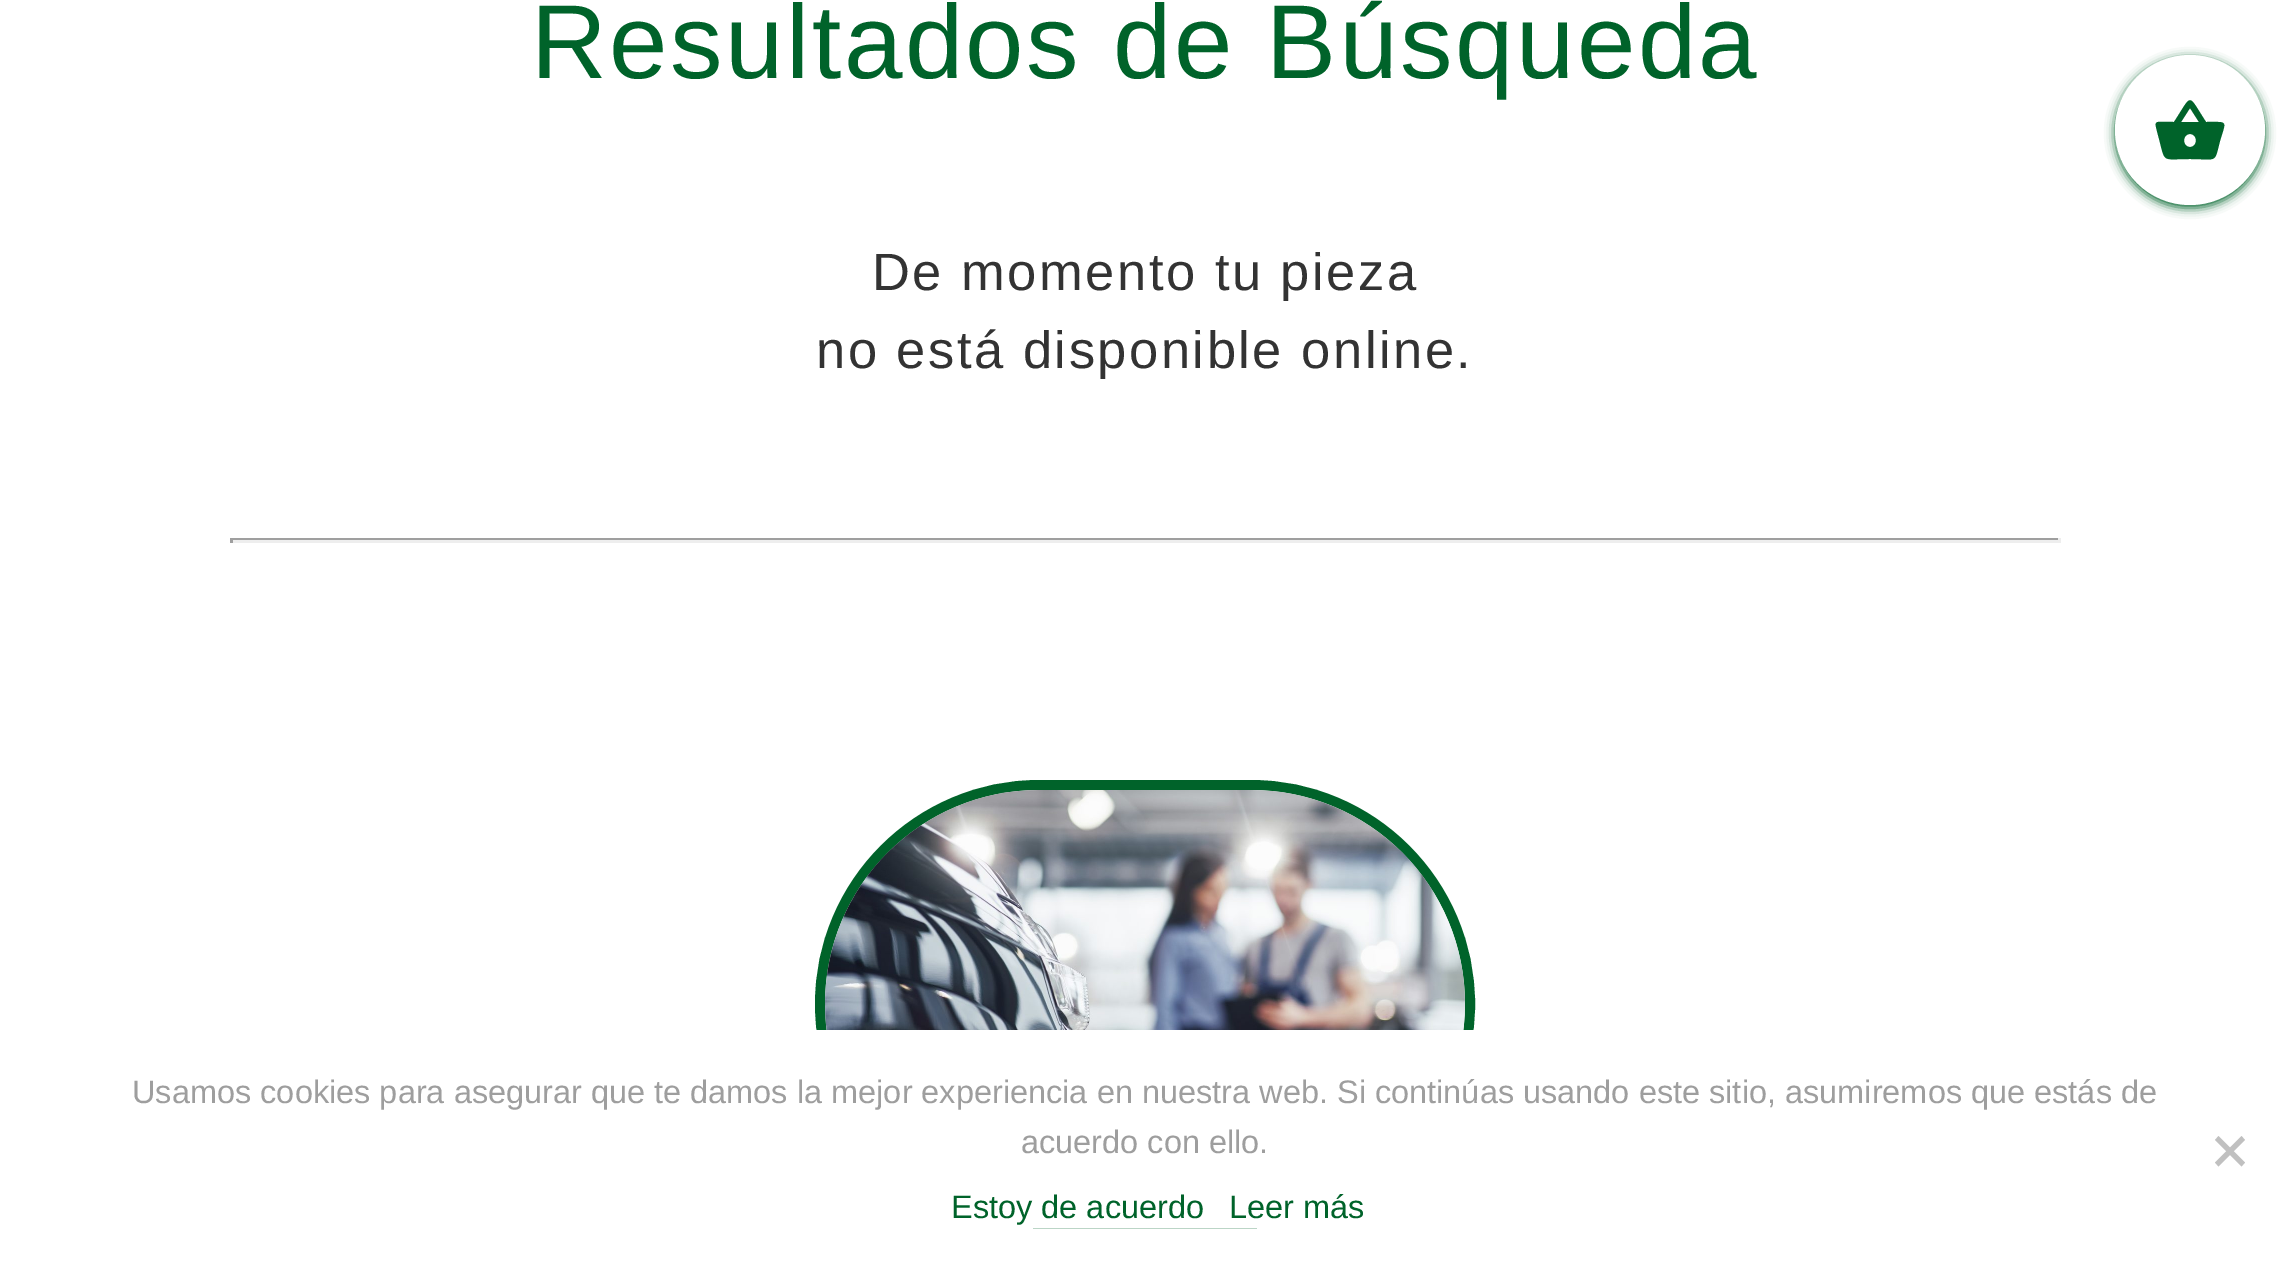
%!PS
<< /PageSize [2289 1270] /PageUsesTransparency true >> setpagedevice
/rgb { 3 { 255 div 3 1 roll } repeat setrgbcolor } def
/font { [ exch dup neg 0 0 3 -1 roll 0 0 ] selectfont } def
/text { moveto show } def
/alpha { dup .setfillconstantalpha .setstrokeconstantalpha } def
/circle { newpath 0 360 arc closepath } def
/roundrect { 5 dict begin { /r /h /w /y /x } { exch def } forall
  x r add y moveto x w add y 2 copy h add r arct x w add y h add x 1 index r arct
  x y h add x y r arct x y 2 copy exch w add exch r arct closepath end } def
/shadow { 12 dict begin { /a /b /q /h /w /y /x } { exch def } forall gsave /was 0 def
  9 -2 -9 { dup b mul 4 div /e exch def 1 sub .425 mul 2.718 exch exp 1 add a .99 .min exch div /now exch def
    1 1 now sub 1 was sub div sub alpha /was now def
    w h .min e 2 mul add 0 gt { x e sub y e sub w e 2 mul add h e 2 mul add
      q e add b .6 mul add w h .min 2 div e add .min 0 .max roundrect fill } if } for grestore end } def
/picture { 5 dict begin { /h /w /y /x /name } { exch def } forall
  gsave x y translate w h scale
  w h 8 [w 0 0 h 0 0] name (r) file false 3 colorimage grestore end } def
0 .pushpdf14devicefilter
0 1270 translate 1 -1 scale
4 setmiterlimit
255 255 255 rgb
0 0 2289 1270 rectfill
159 159 159 rgb
230 538 1830 2 rectfill
238 238 238 rgb
2058 538 3 5 rectfill
230 540 1830 3 rectfill
159 159 159 rgb
230 538 3 5 rectfill
0 99 42 rgb
10 setlinewidth
820 785 650 438 219 roundrect stroke
(img_01.rgb) 825 790 640 240 picture
2115 58 150 150 75 5 1 shadow
255 255 255 rgb
2190 130 75 circle fill
0 99 42 rgb
2190 147 moveto 8 0 8 -13 0 -13 rcurveto -8 0 -8 13 0 13 rcurveto closepath 2181 122 moveto 18 0 rlineto -9 -14 rlineto closepath 2206 122 moveto 23 0 20 -2 14 19 rcurveto -6 23 -2 18 -30 18 rcurveto -30 0 -24 5 -32 -24 rcurveto -4 -16 -5 -13 16 -13 rcurveto 19 -29 13 -29 32 0 rcurveto closepath fill
255 255 255 rgb
816 1030 658 198 rectfill
192 192 192 rgb
2241.5 1136 moveto 3.5 4 rlineto -26.5 26.5 rlineto -3.5 -4 rlineto closepath fill
2215 1140 moveto 3.5 -4 rlineto 26.5 26.5 rlineto -3.5 4 rlineto closepath fill
/LiberationSans-Regular 105 font
0 99 42 rgb
531 78 moveto 2.5 0 (Resultados de Búsqueda) ashow
/LiberationSans-Regular 52.5 font
51 51 51 rgb
872 290 moveto 2.5 0 (De momento tu pieza) ashow
816 368 moveto 2.5 0 (no está disponible online.) ashow
/LiberationSans-Regular 32.5 font
158 158 158 rgb
(Usamos cookies para asegurar que te damos la mejor experiencia en nuestra web. Si continúas usando este sitio, asumiremos que estás de) 132 1103 text
(acuerdo con ello.) 1021 1153 text
0 99 42 rgb
(Estoy de acuerdo) 951 1218 text
(Leer más) 1229 1218 text
.poppdf14devicefilter showpage
